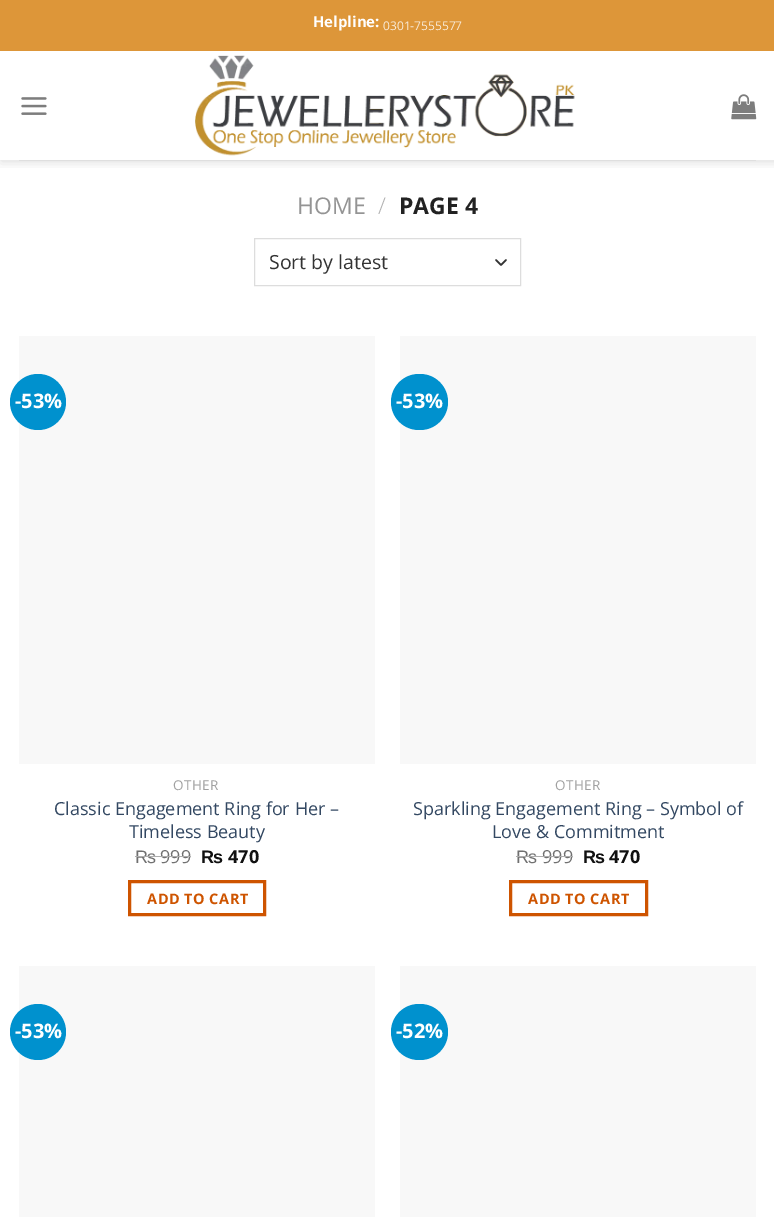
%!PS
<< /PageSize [774 1217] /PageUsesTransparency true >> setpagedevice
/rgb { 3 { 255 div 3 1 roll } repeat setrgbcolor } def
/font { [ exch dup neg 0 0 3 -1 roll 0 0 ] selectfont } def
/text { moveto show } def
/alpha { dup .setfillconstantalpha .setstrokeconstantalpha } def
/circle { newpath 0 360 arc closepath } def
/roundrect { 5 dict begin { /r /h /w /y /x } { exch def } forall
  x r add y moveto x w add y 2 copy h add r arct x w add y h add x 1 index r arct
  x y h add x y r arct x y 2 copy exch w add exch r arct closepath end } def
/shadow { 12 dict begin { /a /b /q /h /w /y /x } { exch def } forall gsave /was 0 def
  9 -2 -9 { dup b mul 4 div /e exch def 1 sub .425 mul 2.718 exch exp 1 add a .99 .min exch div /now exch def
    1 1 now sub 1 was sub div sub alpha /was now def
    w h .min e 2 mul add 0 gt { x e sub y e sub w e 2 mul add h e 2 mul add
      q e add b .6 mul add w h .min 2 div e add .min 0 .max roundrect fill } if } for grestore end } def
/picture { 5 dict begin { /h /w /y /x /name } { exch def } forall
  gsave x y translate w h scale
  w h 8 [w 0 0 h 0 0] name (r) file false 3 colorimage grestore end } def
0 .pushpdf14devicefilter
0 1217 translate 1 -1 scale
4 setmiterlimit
255 255 255 rgb
0 0 774 1217 rectfill
gsave
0 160 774 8 rectclip
0 0 0 rgb
1 1 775 160 0 6 0.15 shadow
grestore
221 150 57 rgb
0 0 774 51 rectfill
(img_01.rgb) 21 97 26 18 picture
(img_02.rgb) 195 55 380 101 picture
(img_03.rgb) 731 94 26 26 picture
223 223 223 rgb
19 160 737 1 rectfill
51 51 51 rgb
1.7 setlinewidth
1 setlinecap
1 setlinejoin
496 260 moveto 5 5 rlineto 5 -5 rlineto stroke
221 221 221 rgb
1 setlinewidth
0 setlinecap
0 setlinejoin
254.5 238.5 266 47 rectstroke
248 248 248 rgb
19 336 356 428 rectfill
0 145 206 rgb
38 402 28 circle fill
206 84 0 rgb
3 setlinewidth
129.5 881.5 135 33 rectstroke
248 248 248 rgb
400 336 356 428 rectfill
0 145 206 rgb
391 374 57 56 28 roundrect fill
206 84 0 rgb
510.5 881.5 136 33 rectstroke
248 248 248 rgb
19 966 356 251 rectfill
0 145 206 rgb
38 1032 28 circle fill
248 248 248 rgb
400 966 356 251 rectfill
0 145 206 rgb
391 1004 57 56 28 roundrect fill
/OpenSans-Bold 15 font
255 255 255 rgb
(Helpline:) 313 27 text
/OpenSans-Regular 12 font
248 234 215 rgb
(0301-7555577) 383 30 text
/OpenSans-Regular 23 font
148 148 148 rgb
(HOME) 297 214 text
/OpenSans-Light 23 font
178 178 178 rgb
(/) 378 214 text
/OpenSans-Bold 23 font
34 34 34 rgb
(PAGE 4) 399 214 text
/OpenSans-Regular 19.5 font
51 51 51 rgb
(Sort by latest) 269 269 text
/OpenSans-Bold 20 font
255 255 255 rgb
(-53%) 15 408 text
/OpenSans-Regular 13.5 font
160 160 160 rgb
173 790 moveto 0.5 0 (OTHER) ashow
/OpenSans-Regular 18 font
51 72 98 rgb
(Classic Engagement Ring for Her –) 54 815 text
(Timeless Beauty) 129 838 text
/LiberationSans-Regular 18 font
112 112 112 rgb
(₨) 135 863 text
173 173 173 rgb
135 856 21 1 rectfill
/OpenSans-Regular 18 font
112 112 112 rgb
(999) 160 863 text
173 173 173 rgb
156 856 35 1 rectfill
/LiberationSans-Bold 18 font
17 17 17 rgb
(₨) 201 863 text
/OpenSans-Bold 18 font
(470) 228 863 text
/OpenSans-Bold 14.5 font
206 84 0 rgb
147 904 moveto 0.5 0 (ADD TO CART) ashow
/OpenSans-Bold 20 font
255 255 255 rgb
(-53%) 396 408 text
/OpenSans-Regular 13.5 font
160 160 160 rgb
555 790 moveto 0.5 0 (OTHER) ashow
/OpenSans-Regular 18 font
51 72 98 rgb
(Sparkling Engagement Ring – Symbol of) 413 815 text
(Love & Commitment) 492 838 text
/LiberationSans-Regular 18 font
112 112 112 rgb
(₨) 516 863 text
173 173 173 rgb
516 856 22 1 rectfill
/OpenSans-Regular 18 font
112 112 112 rgb
(999) 542 863 text
173 173 173 rgb
538 856 35 1 rectfill
/LiberationSans-Bold 18 font
17 17 17 rgb
(₨) 583 863 text
/OpenSans-Bold 18 font
(470) 609 863 text
/OpenSans-Bold 14.5 font
206 84 0 rgb
528 904 moveto 0.5 0 (ADD TO CART) ashow
/OpenSans-Bold 20 font
255 255 255 rgb
(-53%) 15 1038 text
(-52%) 396 1038 text
.poppdf14devicefilter showpage
